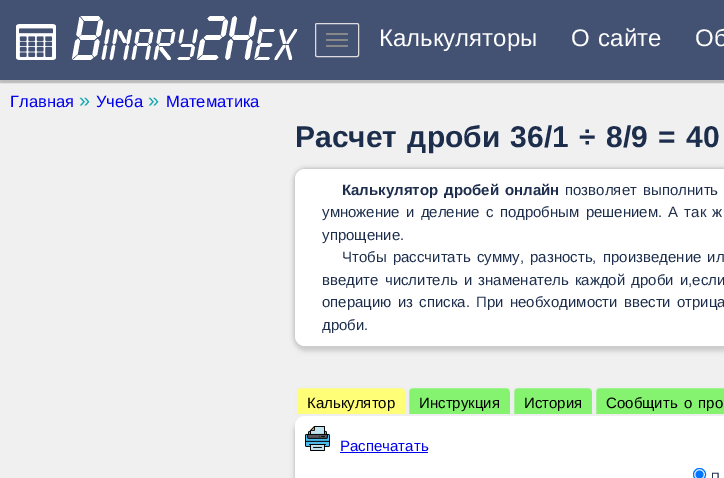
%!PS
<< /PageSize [724 478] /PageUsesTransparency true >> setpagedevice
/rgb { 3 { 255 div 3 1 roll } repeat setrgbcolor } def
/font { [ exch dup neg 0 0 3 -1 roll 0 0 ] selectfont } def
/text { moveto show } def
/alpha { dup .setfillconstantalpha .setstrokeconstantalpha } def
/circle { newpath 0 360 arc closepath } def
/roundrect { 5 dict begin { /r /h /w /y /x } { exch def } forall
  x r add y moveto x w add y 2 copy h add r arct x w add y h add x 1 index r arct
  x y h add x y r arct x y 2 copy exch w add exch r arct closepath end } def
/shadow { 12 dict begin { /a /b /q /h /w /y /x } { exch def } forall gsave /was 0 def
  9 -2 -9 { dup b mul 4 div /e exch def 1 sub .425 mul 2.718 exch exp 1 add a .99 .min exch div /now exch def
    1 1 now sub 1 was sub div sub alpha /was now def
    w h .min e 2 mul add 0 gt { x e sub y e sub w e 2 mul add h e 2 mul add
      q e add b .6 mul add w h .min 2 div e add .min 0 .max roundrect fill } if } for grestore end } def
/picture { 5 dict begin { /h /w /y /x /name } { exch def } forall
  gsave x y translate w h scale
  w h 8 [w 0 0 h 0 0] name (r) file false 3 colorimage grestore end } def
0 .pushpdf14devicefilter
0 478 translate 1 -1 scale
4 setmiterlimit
240 240 240 rgb
0 0 724 478 rectfill
186 186 186 rgb
0 3 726 80 0 0.5 1 shadow
67 81 115 rgb
0 0 724 80 rectfill
(img_01.rgb) 16 15 282 46 picture
221 221 221 rgb
315.5 23.5 43 33 1.5 roundrect stroke
136 136 136 rgb
326 33 22 2 1 roundrect fill
326 39 22 2 1 roundrect fill
326 45 22 2 1 roundrect fill
165 165 165 rgb
295 169 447 177 10 2.5 1 shadow
204 204 204 rgb
295 174 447 177 10 2.5 1 shadow
255 255 255 rgb
295 169 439 177 10 roundrect fill
176 176 176 rgb
295 421 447 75 10 2.5 1 shadow
255 254 118 rgb
301 387 moveto 100 0 rlineto 3 0 5 2 5 5 rcurveto 0 23 rlineto -110 0 rlineto 0 -23 rlineto 0 -3 2 -5 5 -5 rcurveto closepath gsave fill grestore
238 238 238 rgb
2 setlinewidth
stroke
133 243 111 rgb
413 387 moveto 93 0 rlineto 3 0 5 2 5 5 rcurveto 0 23 rlineto -103 0 rlineto 0 -23 rlineto 0 -3 2 -5 5 -5 rcurveto closepath gsave fill grestore
238 238 238 rgb
stroke
133 243 111 rgb
518 387 moveto 70 0 rlineto 3 0 5 2 5 5 rcurveto 0 23 rlineto -80 0 rlineto 0 -23 rlineto 0 -3 2 -5 5 -5 rcurveto closepath gsave fill grestore
238 238 238 rgb
stroke
133 243 111 rgb
600 387 moveto 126 0 rlineto 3 0 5 2 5 5 rcurveto 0 23 rlineto -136 0 rlineto 0 -23 rlineto 0 -3 2 -5 5 -5 rcurveto closepath gsave fill grestore
238 238 238 rgb
stroke
255 255 255 rgb
295 416 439 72 10 roundrect fill
(img_02.rgb) 305 426 25 25 picture
0 0 238 rgb
340 452 88 1 rectfill
0 117 255 rgb
1 setlinewidth
699.5 474.5 6 circle stroke
699.5 474.5 4 circle fill
/LiberationSans-Regular 24 font
255 255 255 rgb
(Калькуляторы) 379 46 text
571 46 moveto 2 0 32 (О сайте) widthshow
695 46 moveto 2 0 32 (Об) widthshow
/LiberationSans-Regular 16.5 font
0 0 238 rgb
(Главная) 10 107 text
/LiberationSans-Regular 20 font
15 168 174 rgb
(») 79 107 text
/LiberationSans-Regular 16.5 font
0 0 238 rgb
(Учеба) 96 107 text
/LiberationSans-Regular 20 font
15 168 174 rgb
(») 148 107 text
/LiberationSans-Regular 16.5 font
0 0 238 rgb
(Математика) 166 107 text
/LiberationSans-Bold 30 font
29 46 76 rgb
295 147 moveto 2 0 32 (Расчет дроби 36/1 ÷ 8/9 = 40) widthshow
/LiberationSans-Bold 15 font
342 195 moveto 2 0 32 (Калькулятор дробей онлайн) widthshow
/LiberationSans-Regular 15 font
565 195 moveto 2 0 32 (позволяет выполнить) widthshow
322 217 moveto 2 0 32 (умножение и деление с подробным решением. А так ж) widthshow
(упрощение.) 322 240 text
342 262 moveto 2 0 32 (Чтобы рассчитать сумму, разность, произведение ил) widthshow
322 285 moveto 2 0 32 (введите числитель и знаменатель каждой дроби и,если) widthshow
322 307 moveto 2 0 32 (операцию из списка. При необходимости ввести отрица) widthshow
(дроби.) 322 330 text
0 0 0 rgb
(Калькулятор) 307 408 text
(Инструкция) 419 408 text
(История) 524 408 text
606 408 moveto 2 0 32 (Сообщить о про) widthshow
0 0 238 rgb
(Распечатать) 340 451 text
/LiberationSans-Regular 12 font
29 46 76 rgb
(П) 711 481 text
.poppdf14devicefilter showpage
